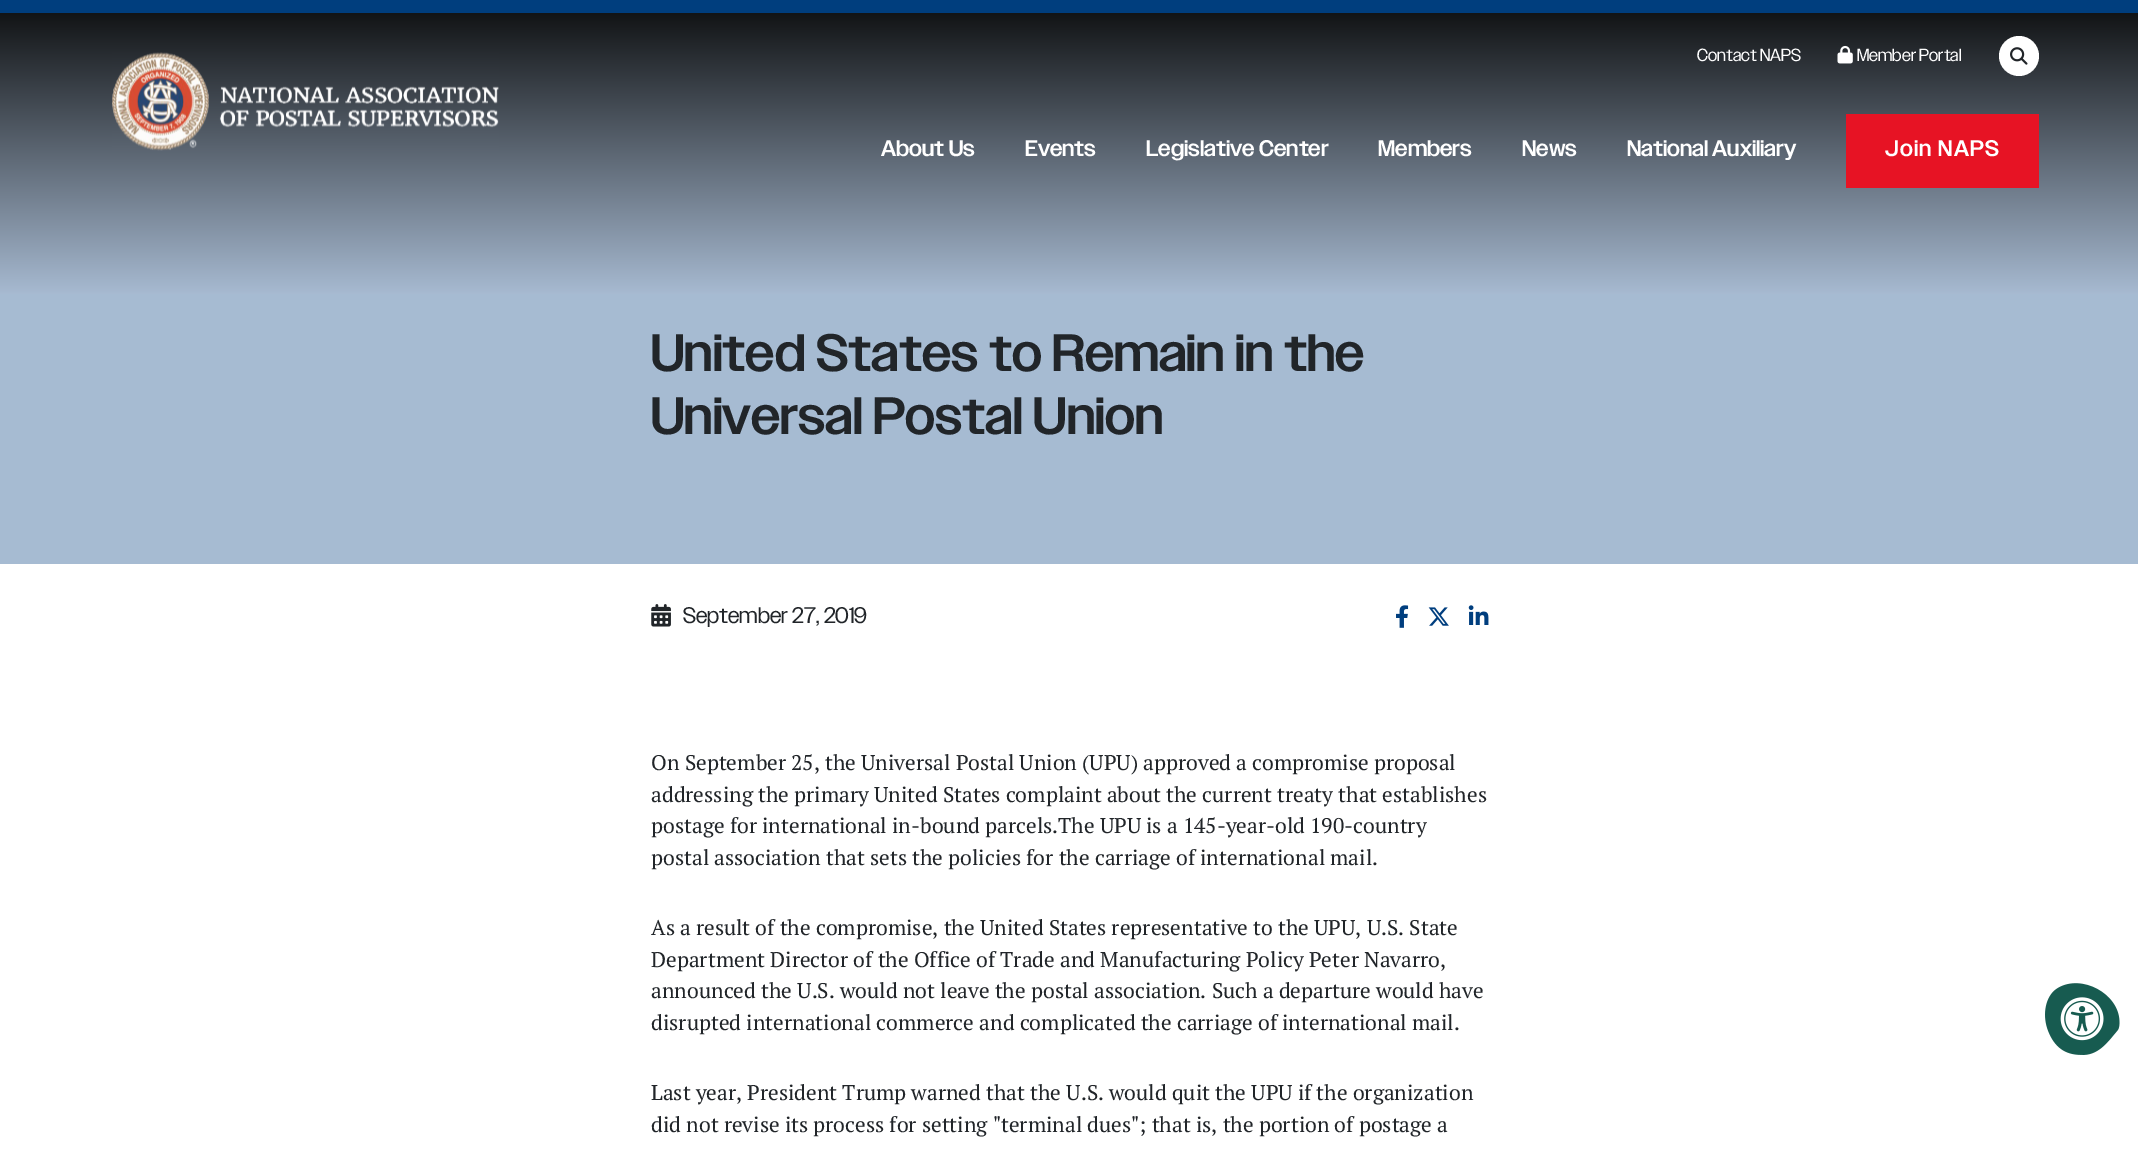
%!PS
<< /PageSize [2138 1156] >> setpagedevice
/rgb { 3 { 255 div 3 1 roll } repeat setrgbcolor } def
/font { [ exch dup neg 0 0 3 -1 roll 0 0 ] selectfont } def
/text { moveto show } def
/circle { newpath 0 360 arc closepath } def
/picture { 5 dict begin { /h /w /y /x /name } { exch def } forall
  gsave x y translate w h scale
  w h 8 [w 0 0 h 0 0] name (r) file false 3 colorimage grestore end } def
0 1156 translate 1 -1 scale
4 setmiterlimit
255 255 255 rgb
0 0 2138 1156 rectfill
0 62 126 rgb
0 0 2138 13 rectfill
gsave 0 13 moveto 2138 0 rlineto 0 281 rlineto -2138 0 rlineto closepath clip newpath
<< /ShadingType 2 /ColorSpace /DeviceRGB /Coords [1069 12 1069 294] /Extend [true true] /Function << /FunctionType 2 /Domain [0 1] /C0 [0.067 0.075 0.082] /C1 [0.655 0.729 0.82] /N 1 >> >> shfill grestore
(img_01.rgb) 112 52 387 99 picture
(img_02.rgb) 1837 45 16 19 picture
255 255 255 rgb
2019 56 20 circle fill
(img_03.rgb) 2010 47 18 18 picture
231 19 36 rgb
1846 114 193 74 rectfill
166 187 210 rgb
0 294 2138 270 rectfill
(img_04.rgb) 651 604 20 23 picture
(img_05.rgb) 1396 605 13 23 picture
(img_06.rgb) 1428 607 21 19 picture
(img_07.rgb) 1468 605 21 20 picture
(img_08.rgb) 2045 983 75 72 picture
/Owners-Regular 17.5 font
255 255 255 rgb
(Contact NAPS) 1697 61 text
(Member Portal) 1857 61 text
/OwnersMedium-Medium 22.5 font
(About Us) 881 156 text
(Events) 1025 156 text
(Legislative Center) 1146 156 text
(Members) 1378 156 text
(News) 1522 156 text
(National Auxiliary) 1627 156 text
1885 156 moveto 1.25 0 (Join NAPS) ashow
/OwnersMedium-Medium 52.5 font
33 37 41 rgb
(United States to Remain in the) 651 371 text
(Universal Postal Union) 651 434 text
/Owners-Regular 22.5 font
(September 27, 2019) 683 623 text
/PTSerif-Regular 21.25 font
(On September 25, the Universal Postal Union \(UPU\) approved a compromise proposal) 651 770 text
(addressing the primary United States complaint about the current treaty that establishes) 651 802 text
(postage for international in-bound parcels.The UPU is a 145-year-old 190-country) 651 833 text
(postal association that sets the policies for the carriage of international mail.) 651 865 text
(As a result of the compromise, the United States representative to the UPU, U.S. State) 651 935 text
(Department Director of the Office of Trade and Manufacturing Policy Peter Navarro,) 651 967 text
(announced the U.S. would not leave the postal association. Such a departure would have) 651 998 text
(disrupted international commerce and complicated the carriage of international mail.) 651 1030 text
(Last year, President Trump warned that the U.S. would quit the UPU if the organization) 651 1100 text
(did not revise its process for setting "terminal dues"; that is, the portion of postage a) 651 1132 text
showpage
